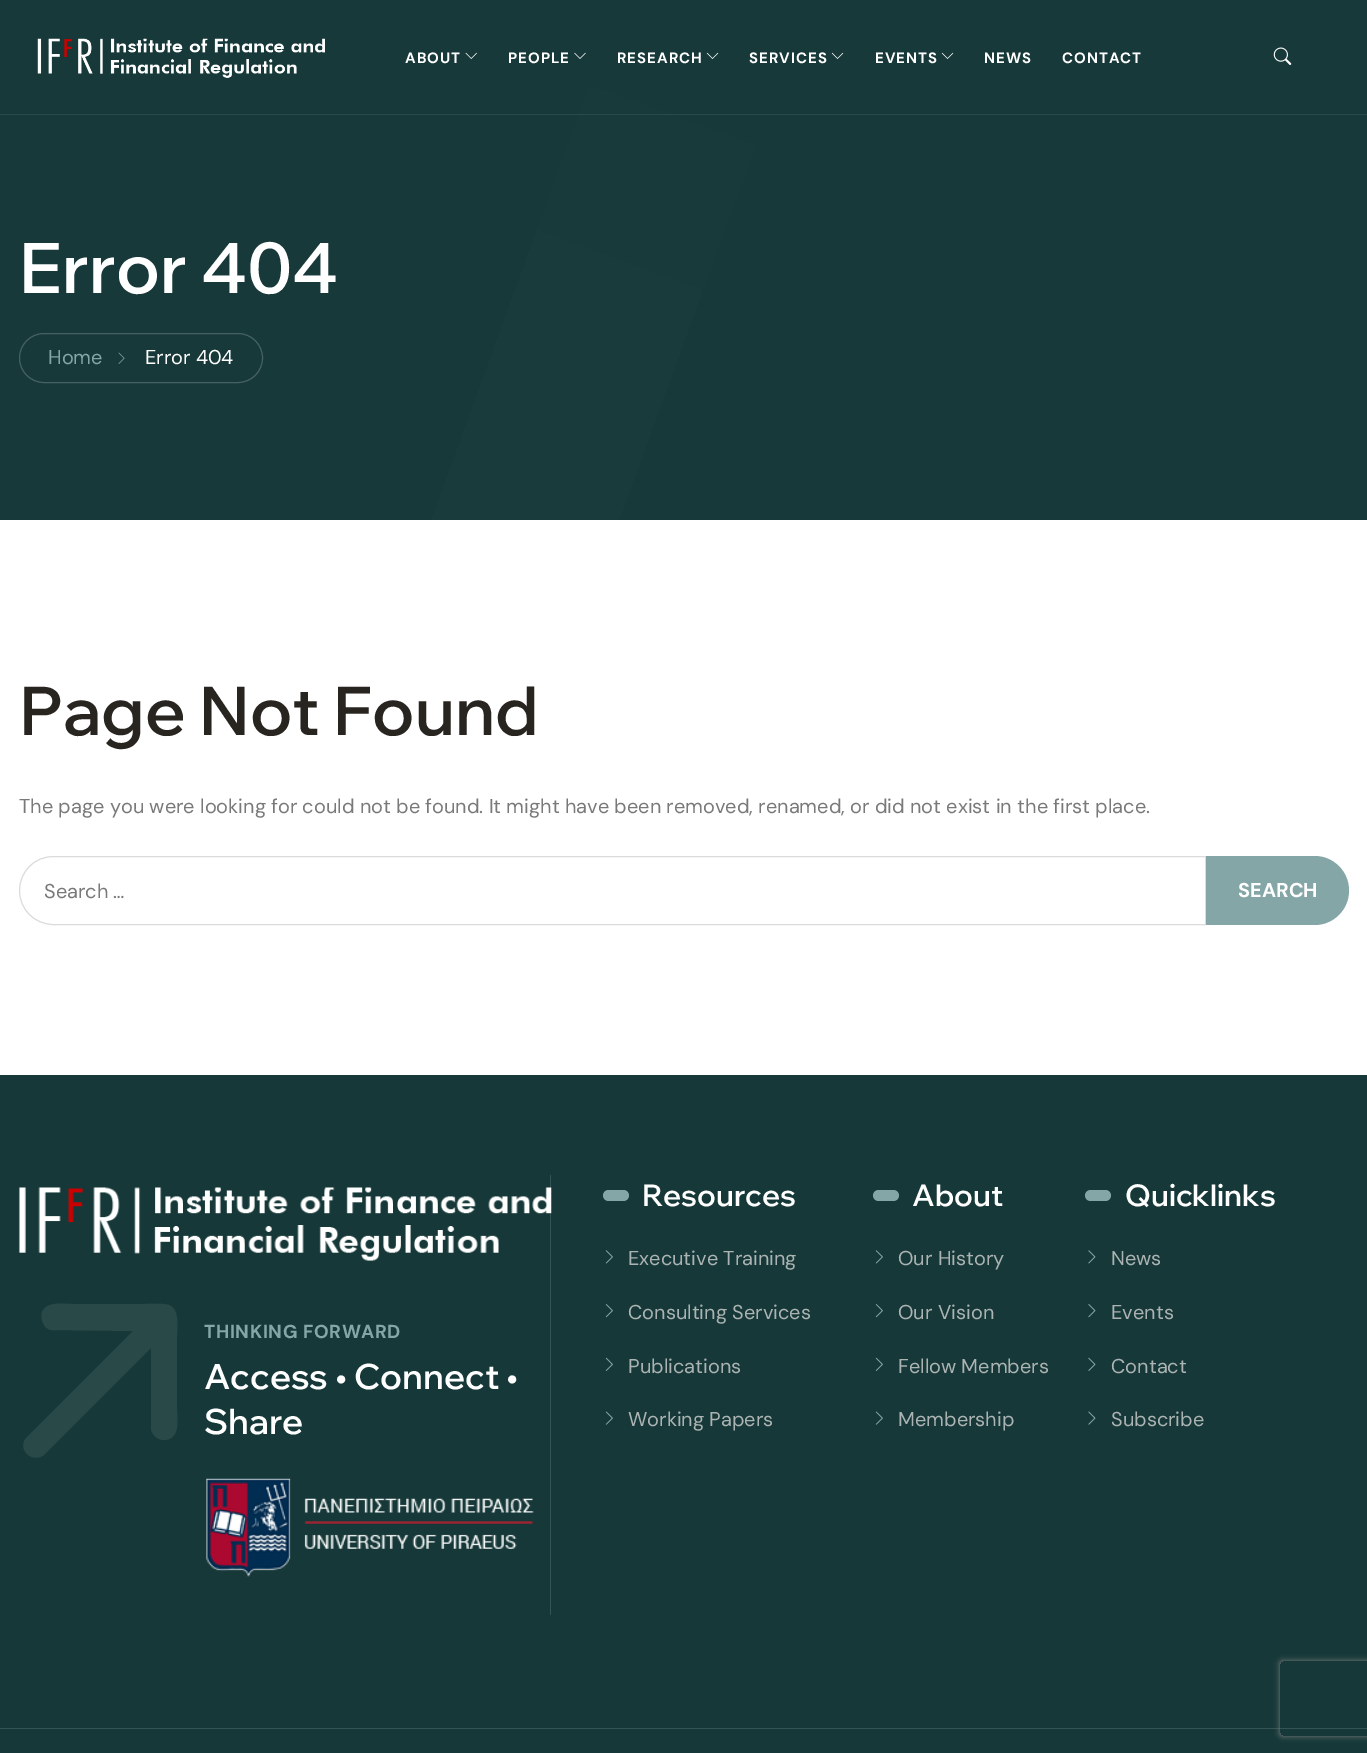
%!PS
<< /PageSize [1367 1753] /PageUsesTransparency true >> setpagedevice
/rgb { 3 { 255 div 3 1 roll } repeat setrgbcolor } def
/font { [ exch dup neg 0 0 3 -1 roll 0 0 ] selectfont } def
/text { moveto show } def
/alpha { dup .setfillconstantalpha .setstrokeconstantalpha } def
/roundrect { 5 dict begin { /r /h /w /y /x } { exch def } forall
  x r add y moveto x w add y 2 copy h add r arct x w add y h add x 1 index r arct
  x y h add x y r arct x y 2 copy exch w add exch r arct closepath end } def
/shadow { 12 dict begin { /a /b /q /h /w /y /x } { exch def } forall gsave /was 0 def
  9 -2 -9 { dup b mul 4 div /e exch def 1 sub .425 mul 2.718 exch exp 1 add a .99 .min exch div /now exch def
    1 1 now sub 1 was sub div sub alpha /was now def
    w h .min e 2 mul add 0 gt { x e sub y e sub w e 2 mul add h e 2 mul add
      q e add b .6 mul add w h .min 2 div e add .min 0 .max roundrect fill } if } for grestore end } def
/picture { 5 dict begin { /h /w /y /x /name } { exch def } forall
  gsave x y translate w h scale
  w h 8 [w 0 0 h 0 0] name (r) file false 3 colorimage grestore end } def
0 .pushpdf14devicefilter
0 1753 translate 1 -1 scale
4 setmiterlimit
255 255 255 rgb
0 0 1367 1753 rectfill
23 57 57 rgb
0 0 1367 520 rectfill
gsave
0 0 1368 520 rectclip
gsave 643 -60 moveto 165 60 rlineto -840 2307 rlineto -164 -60 rlineto closepath clip newpath
<< /ShadingType 2 /ColorSpace /DeviceRGB /Coords [-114 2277 726 -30] /Extend [true true] /Function << /FunctionType 2 /Domain [0 1] /C0 [0.141 0.275 0.275] /C1 [0.09 0.224 0.224] /N 1 >> >> shfill grestore
grestore
42 73 73 rgb
0 114 1367 1 rectfill
(img_01.rgb) 37 38 288 40 picture
(img_02.rgb) 465 52 12 7 picture
(img_03.rgb) 574 52 12 7 picture
(img_04.rgb) 706 52 13 7 picture
(img_04.rgb) 831 52 13 7 picture
(img_04.rgb) 941 52 13 7 picture
(img_05.rgb) 1273 47 19 18 picture
69 97 97 rgb
19.5 333.5 243 49 24.5 roundrect stroke
(img_06.rgb) 118 352 7 12 picture
219 219 219 rgb
53.5 856.5 moveto 1152 0 rlineto 0 68 rlineto -1152 0 rlineto -19 0 -34 -15 -34 -34 rcurveto 0 -19 15 -34 34 -34 rcurveto closepath stroke
133 166 166 rgb
1206 856 moveto 108.5 0 rlineto 19 0 34.5 15.5 34.5 34.5 rcurveto 0 19 -15.5 34.5 -34.5 34.5 rcurveto -108.5 0 rlineto closepath fill
22 56 56 rgb
0 1075 1367 653 rectfill
53 84 84 rgb
0 1728 1367 1 rectfill
55 84 84 rgb
550 1175 1 440 rectfill
(img_07.rgb) 18 1187 534 74 picture
41 73 73 rgb
27 1454 moveto -5 -5 -5 -12 0 -17 rcurveto 106 -106 rlineto -82 -1 rlineto -7 -1 -11 -11 -9 -18 rcurveto 5 -11 21 -8 30 -8 rcurveto 73 0 rlineto 3 0 17 -1 24 1 rcurveto 11 5 8 22 8 31 rcurveto 0 73 rlineto 0 8 3 23 -6 29 rcurveto -3 2 -6 2 -9 2 rcurveto -5 -1 -11 -6 -11 -12 rcurveto 0 -80 rlineto -106 106 rlineto -5 5 -13 5 -18 0 rcurveto closepath fill
(img_08.rgb) 206 1478 328 99 picture
133 166 166 rgb
603 1190 26 11 5.5 roundrect fill
(img_09.rgb) 605 1250 8 14 picture
(img_10.rgb) 605 1304 8 14 picture
(img_11.rgb) 605 1357 8 14 picture
(img_12.rgb) 605 1411 8 14 picture
873 1190 26 11 5.5 roundrect fill
(img_09.rgb) 875 1250 8 14 picture
(img_10.rgb) 875 1304 8 14 picture
(img_11.rgb) 875 1357 8 14 picture
(img_12.rgb) 875 1411 8 14 picture
1085 1190 26 11 5.5 roundrect fill
(img_13.rgb) 1088 1250 8 14 picture
(img_14.rgb) 1088 1304 8 14 picture
(img_15.rgb) 1088 1357 8 14 picture
(img_16.rgb) 1088 1411 8 14 picture
22 56 56 rgb
0 1729 1367 24 rectfill
gsave
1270 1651 moveto 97 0 rlineto 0 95 rlineto -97 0 rlineto closepath 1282.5 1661 moveto 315 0 rlineto 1.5 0 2.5 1 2.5 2.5 rcurveto 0 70 rlineto 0 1.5 -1 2.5 -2.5 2.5 rcurveto -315 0 rlineto -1.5 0 -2.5 -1 -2.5 -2.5 rcurveto 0 -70 rlineto 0 -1.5 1 -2.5 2.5 -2.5 rcurveto closepath eoclip newpath
128 128 128 rgb
1280 1661 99 75 2.5 3 1 shadow
grestore
/DMSans-Bold 15 font
255 255 255 rgb
405 63 moveto 1 0 (ABOUT) ashow
508 63 moveto 1 0 (PEOPLE) ashow
617 63 moveto 1 0 (RESEARCH) ashow
749 63 moveto 1 0 (SERVICES) ashow
875 63 moveto 1 0 (EVENTS) ashow
984 63 moveto 1 0 (NEWS) ashow
1062 63 moveto 1 0 (CONTACT) ashow
/WixMadeforDisplay-SemiBold 70 font
(Error 404) 19 293 text
/DMSans-Regular 20 font
133 166 166 rgb
(Home) 48 364 text
255 255 255 rgb
(Error 404) 145 364 text
/WixMadeforDisplay-SemiBold 67.5 font
40 36 31 rgb
(Page Not Found) 19 735 text
/DMSans-Regular 20 font
121 121 121 rgb
(The page you were looking for could not be found. It might have been removed, renamed, or did not exist in the first place.) 19 813 text
(Search …) 44 898 text
/DMSans-Bold 20 font
255 255 255 rgb
(SEARCH) 1238 897 text
/DMSans-Bold 18.75 font
133 166 166 rgb
204 1338 moveto 0.6 0 (THINKING FORWARD) ashow
/WixMadeforDisplay-SemiBold 35 font
255 255 255 rgb
(Access • Connect •) 204 1389 text
(Share) 204 1434 text
/WixMadeforDisplay-SemiBold 30 font
(Resources) 642 1206 text
/DMSans-Regular 20 font
172 179 179 rgb
(Executive Training) 628 1265 text
(Consulting Services) 628 1319 text
(Publications) 628 1373 text
(Working Papers) 628 1426 text
/WixMadeforDisplay-SemiBold 30 font
255 255 255 rgb
(About) 912 1206 text
/DMSans-Regular 20 font
172 179 179 rgb
(Our History) 898 1265 text
(Our Vision) 898 1319 text
(Fellow Members) 898 1373 text
(Membership) 898 1426 text
/WixMadeforDisplay-SemiBold 30 font
255 255 255 rgb
(Quicklinks) 1125 1206 text
/DMSans-Regular 20 font
172 179 179 rgb
(News) 1111 1265 text
(Events) 1111 1319 text
(Contact) 1111 1373 text
(Subscribe) 1111 1426 text
.poppdf14devicefilter showpage
